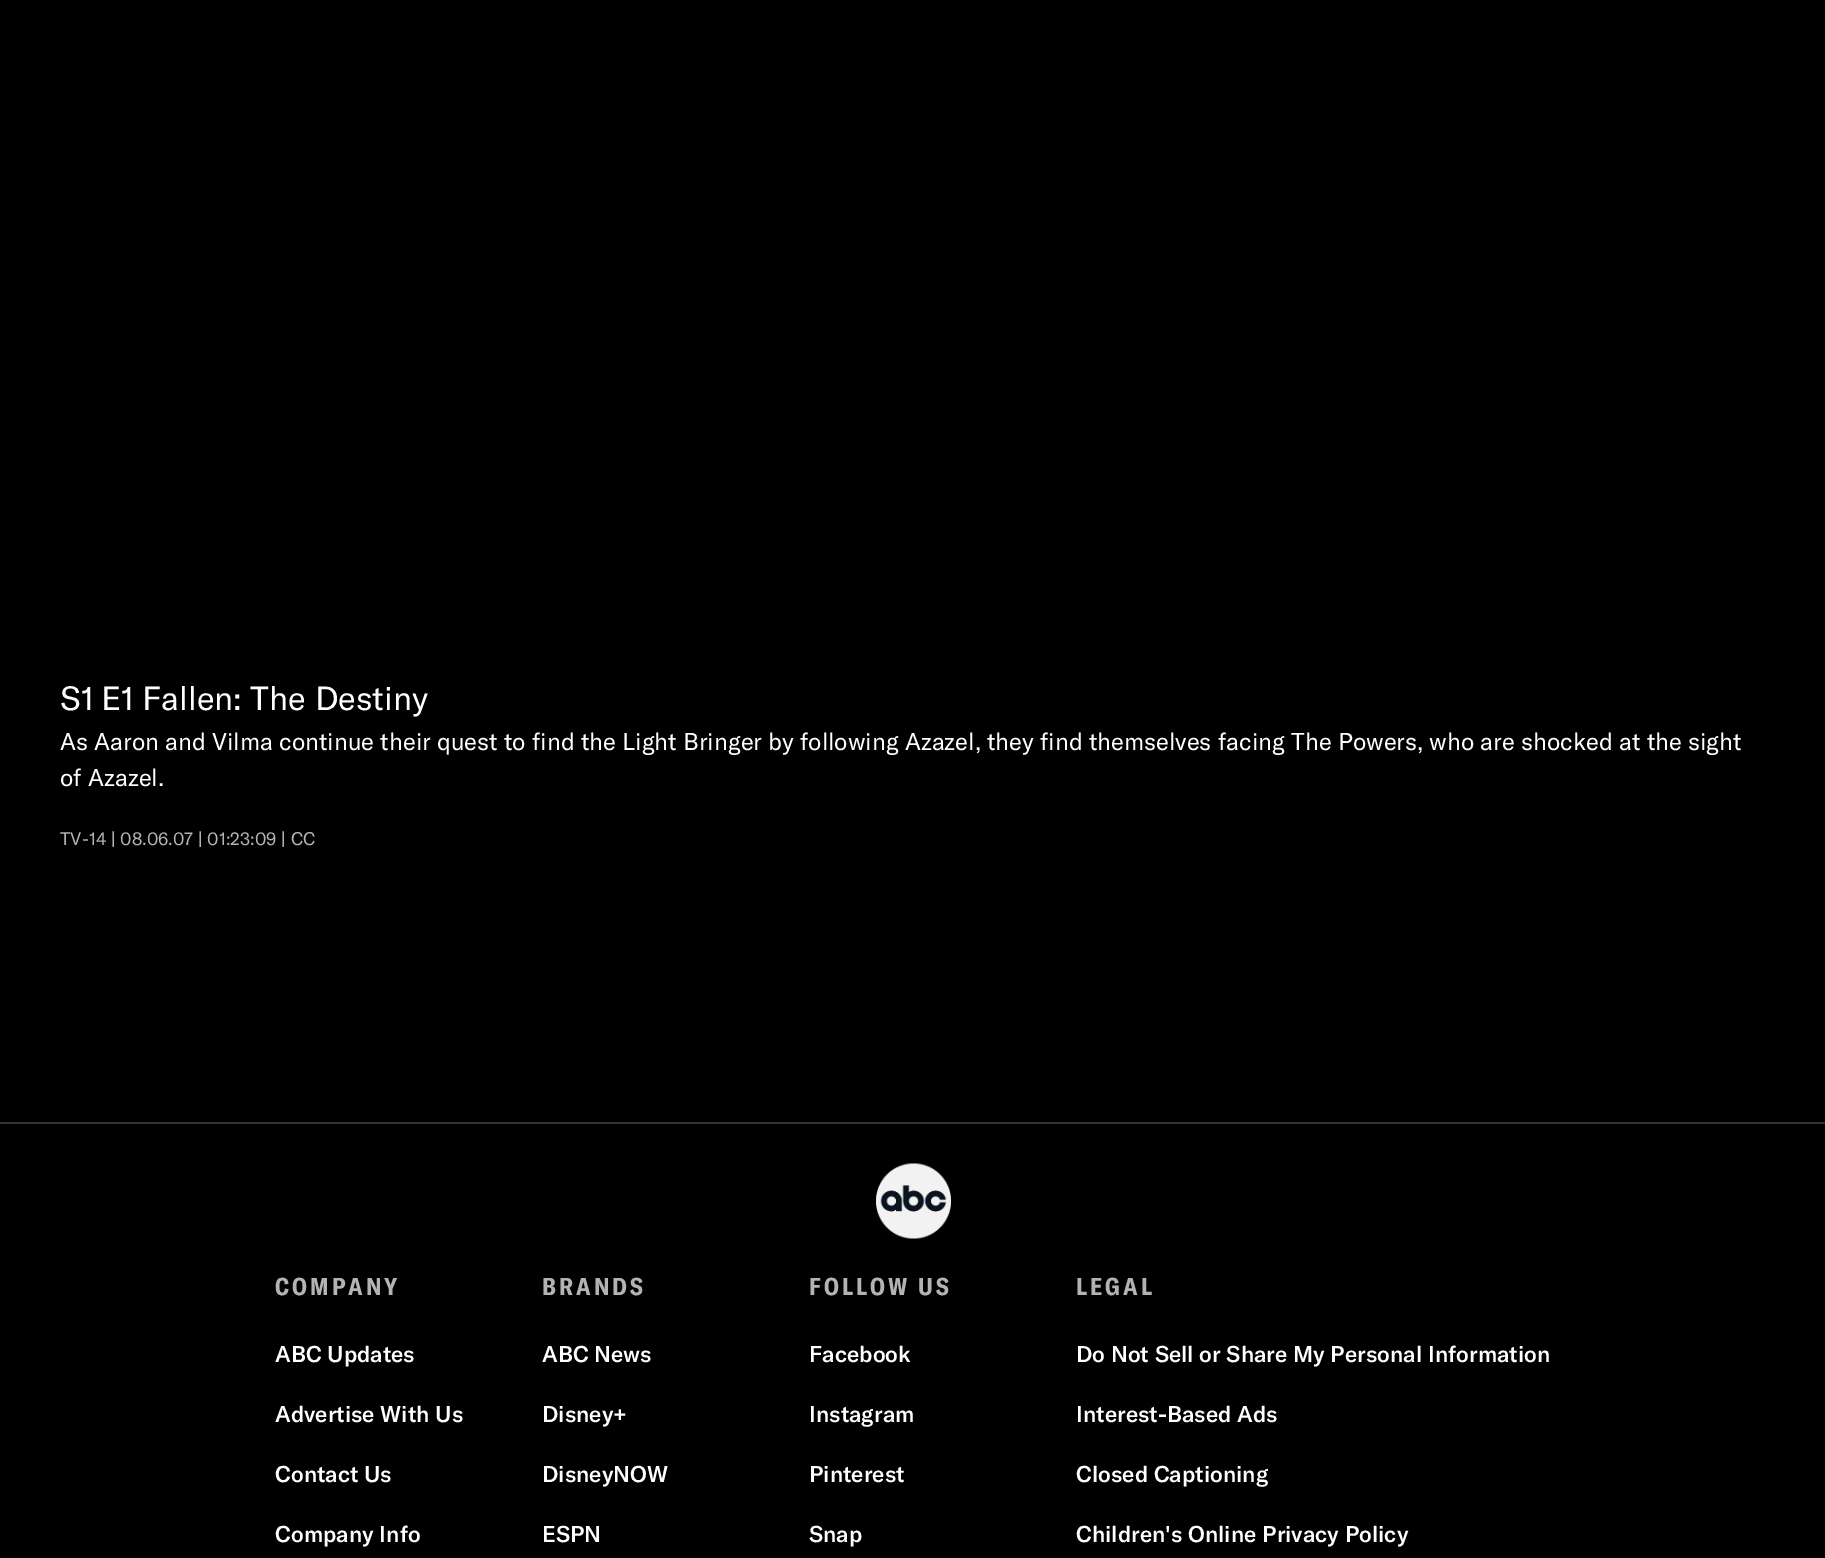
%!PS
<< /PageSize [1825 1558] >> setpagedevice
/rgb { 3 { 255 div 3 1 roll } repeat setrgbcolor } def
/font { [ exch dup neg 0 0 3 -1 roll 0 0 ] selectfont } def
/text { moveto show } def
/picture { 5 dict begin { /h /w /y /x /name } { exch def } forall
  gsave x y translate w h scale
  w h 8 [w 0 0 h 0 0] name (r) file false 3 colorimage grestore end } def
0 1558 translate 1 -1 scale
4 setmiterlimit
0 0 0 rgb
0 0 1825 1558 rectfill
51 51 51 rgb
0 1122 1825 2 rectfill
(img_01.rgb) 876 1163 75 76 picture
/GTAmerica-Regular 33 font
255 255 255 rgb
(S1) 60 710 text
(E1) 101 710 text
(Fallen: The Destiny) 142 710 text
/GTAmerica-Regular 24 font
(As Aaron and Vilma continue their quest to find the Light Bringer by following Azazel, they find themselves facing The Powers, who are shocked at the sight) 60 750 text
(of Azazel.) 60 786 text
/GTAmerica-Regular 18 font
179 179 179 rgb
(TV-14 | 08.06.07 | 01:23:09 | CC) 60 845 text
/GTAmerica-Bold 24 font
275 1295 moveto 3 0 (COMPANY) ashow
/GTAmerica-Medium 22.5 font
255 255 255 rgb
(ABC Updates) 275 1362 text
(Advertise With Us) 275 1422 text
(Contact Us) 275 1482 text
(Company Info) 275 1542 text
/GTAmerica-Bold 24 font
179 179 179 rgb
542 1295 moveto 3 0 (BRANDS) ashow
/GTAmerica-Medium 22.5 font
255 255 255 rgb
(ABC News) 542 1362 text
(Disney+) 542 1422 text
(DisneyNOW) 542 1482 text
(ESPN) 542 1542 text
/GTAmerica-Bold 24 font
179 179 179 rgb
809 1295 moveto 3 0 (FOLLOW US) ashow
/GTAmerica-Medium 22.5 font
255 255 255 rgb
(Facebook) 809 1362 text
(Instagram) 809 1422 text
(Pinterest) 809 1482 text
(Snap) 809 1542 text
/GTAmerica-Bold 24 font
179 179 179 rgb
1076 1295 moveto 3 0 (LEGAL) ashow
/GTAmerica-Medium 22.5 font
255 255 255 rgb
(Do Not Sell or Share My Personal Information) 1076 1362 text
(Interest-Based Ads) 1076 1422 text
(Closed Captioning) 1076 1482 text
(Children's Online Privacy Policy) 1076 1542 text
showpage
